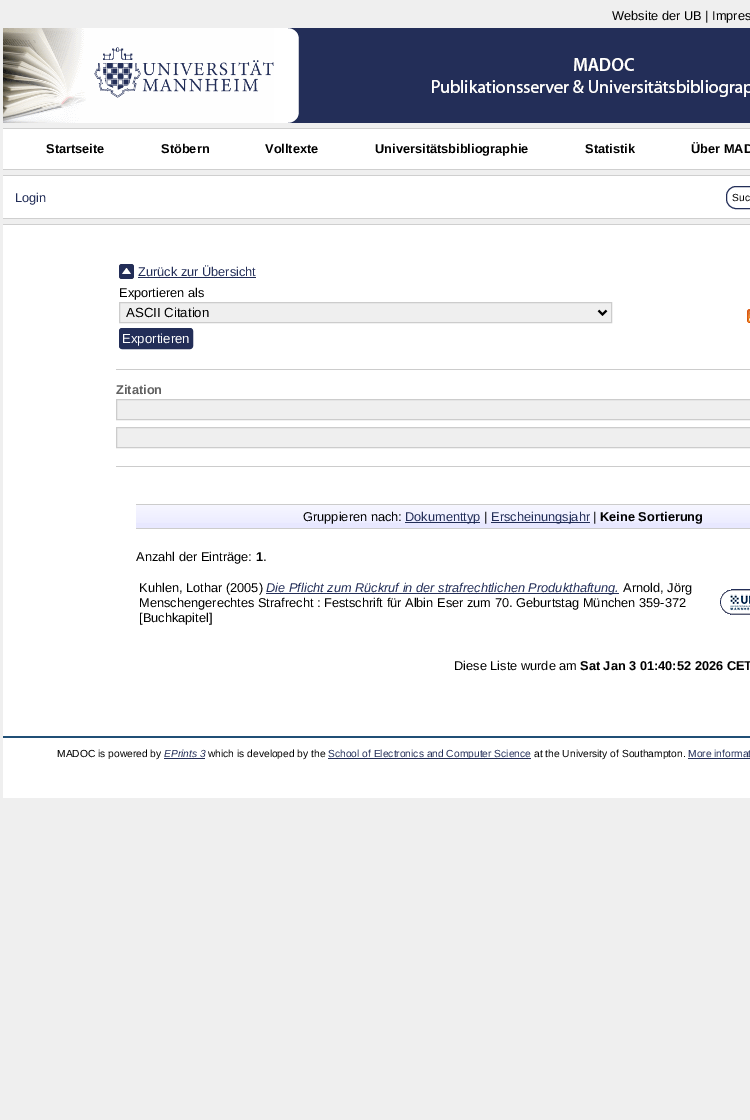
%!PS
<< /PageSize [750 1120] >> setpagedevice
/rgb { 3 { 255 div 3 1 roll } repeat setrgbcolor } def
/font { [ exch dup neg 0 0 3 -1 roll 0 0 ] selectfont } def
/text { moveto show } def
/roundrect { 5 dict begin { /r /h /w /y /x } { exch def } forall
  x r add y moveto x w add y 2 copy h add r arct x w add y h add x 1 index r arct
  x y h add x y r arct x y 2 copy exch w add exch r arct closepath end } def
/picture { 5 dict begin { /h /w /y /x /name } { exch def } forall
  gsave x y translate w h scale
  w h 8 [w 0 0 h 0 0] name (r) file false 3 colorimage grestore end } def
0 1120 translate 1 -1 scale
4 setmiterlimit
239 239 239 rgb
0 0 750 1120 rectfill
255 255 255 rgb
3 28 747 770 rectfill
(img_01.rgb) 3 28 271 95 picture
(img_02.rgb) 288 28 462 95 picture
239 239 239 rgb
3 123 747 5 rectfill
207 207 207 rgb
3 128 747 1 rectfill
3 169 747 1 rectfill
239 239 239 rgb
3 170 747 5 rectfill
207 207 207 rgb
3 175 747 1 rectfill
3 218 747 1 rectfill
35 46 88 rgb
726.5 186.5 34 22 9.5 roundrect stroke
239 239 239 rgb
3 219 747 5 rectfill
207 207 207 rgb
3 224 747 1 rectfill
(img_03.rgb) 119 264 15 15 picture
35 46 88 rgb
138 277 118 1 rectfill
239 239 239 rgb
119.5 302.5 moveto 492 0 rlineto 0 20 rlineto -492 0 rlineto closepath gsave fill grestore
204 204 204 rgb
stroke
0 0 0 rgb
2 setlinewidth
598.5 310.5 moveto 4 4 rlineto 4 -4 rlineto stroke
35 46 88 rgb
119.5 328.5 73 20 2.5 roundrect gsave fill grestore
1 setlinewidth
stroke
(img_04.rgb) 747 309 3 14 picture
204 204 204 rgb
116 369 634 1 rectfill
116 466 634 1 rectfill
239 239 239 rgb
116.5 399.5 moveto 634 0 rlineto 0 20 rlineto -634 0 rlineto closepath gsave fill grestore
204 204 204 rgb
stroke
239 239 239 rgb
116.5 427.5 moveto 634 0 rlineto 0 20 rlineto -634 0 rlineto closepath gsave fill grestore
204 204 204 rgb
stroke
232 232 255 rgb
136 505 614 23 rectfill
(img_05.rgb) 136 505 614 18 picture
204 204 204 rgb
136 504 614 1 rectfill
136 528 614 1 rectfill
35 46 88 rgb
405 522 75 1 rectfill
491 522 99 1 rectfill
266 593 353 1 rectfill
(img_06.rgb) 720 589 30 26 picture
32 79 118 rgb
3 736 747 2 rectfill
35 46 88 rgb
164 758 41 1 rectfill
328 758 203 1 rectfill
688 758 62 1 rectfill
/LiberationSans-Regular 12.8 font
0 0 0 rgb
(Website der UB | Impres) 612 20 text
/LiberationSans-Bold 12.8 font
(Startseite) 46 153 text
(Stöbern) 161 153 text
(Volltexte) 265 153 text
(Universitätsbibliographie) 375 153 text
(Statistik) 585 153 text
(Über MAD) 691 153 text
/LiberationSans-Regular 12.8 font
35 46 88 rgb
(Login) 15 202 text
/LiberationSans-Regular 10.25 font
0 0 0 rgb
(Suc) 732 201 text
/LiberationSans-Regular 12.8 font
35 46 88 rgb
(Zurück zur Übersicht) 138 276 text
0 0 0 rgb
(Exportieren als) 119 297 text
/LiberationSans-Regular 13.25 font
(ASCII Citation) 126 317 text
255 255 255 rgb
(Exportieren) 122 343 text
/LiberationSans-Bold 12.8 font
96 96 96 rgb
(Zitation) 116 394 text
/LiberationSans-Regular 12.8 font
0 0 0 rgb
(Gruppieren nach:) 303 521 text
35 46 88 rgb
(Dokumenttyp) 405 521 text
0 0 0 rgb
(|) 484 521 text
35 46 88 rgb
(Erscheinungsjahr) 491 521 text
0 0 0 rgb
(|) 593 521 text
/LiberationSans-Bold 12.8 font
(Keine Sortierung) 600 521 text
/LiberationSans-Regular 12.8 font
(Anzahl der Einträge:) 136 561 text
/LiberationSans-Bold 12.8 font
(1) 256 561 text
/LiberationSans-Regular 12.8 font
(.) 263 561 text
(Kuhlen, Lothar \(2005\)) 139 592 text
/LiberationSans-Italic 12.8 font
35 46 88 rgb
(Die Pflicht zum Rückruf in der strafrechtlichen Produkthaftung.) 266 592 text
/LiberationSans-Regular 12.8 font
0 0 0 rgb
(Arnold, Jörg) 623 592 text
(Menschengerechtes Strafrecht : Festschrift für Albin Eser zum 70. Geburtstag München 359-372) 139 607 text
([Buchkapitel]) 139 622 text
(Diese Liste wurde am) 454 670 text
/LiberationSans-Bold 12.8 font
(Sat Jan 3 01:40:52 2026 CET) 580 670 text
/LiberationSans-Regular 10.25 font
(MADOC is powered by) 57 757 text
/LiberationSans-Italic 10.25 font
35 46 88 rgb
(EPrints 3) 164 757 text
/LiberationSans-Regular 10.25 font
0 0 0 rgb
(which is developed by the) 208 757 text
35 46 88 rgb
(School of Electronics and Computer Science) 328 757 text
0 0 0 rgb
(at the University of Southampton.) 534 757 text
35 46 88 rgb
(More informat) 688 757 text
showpage
